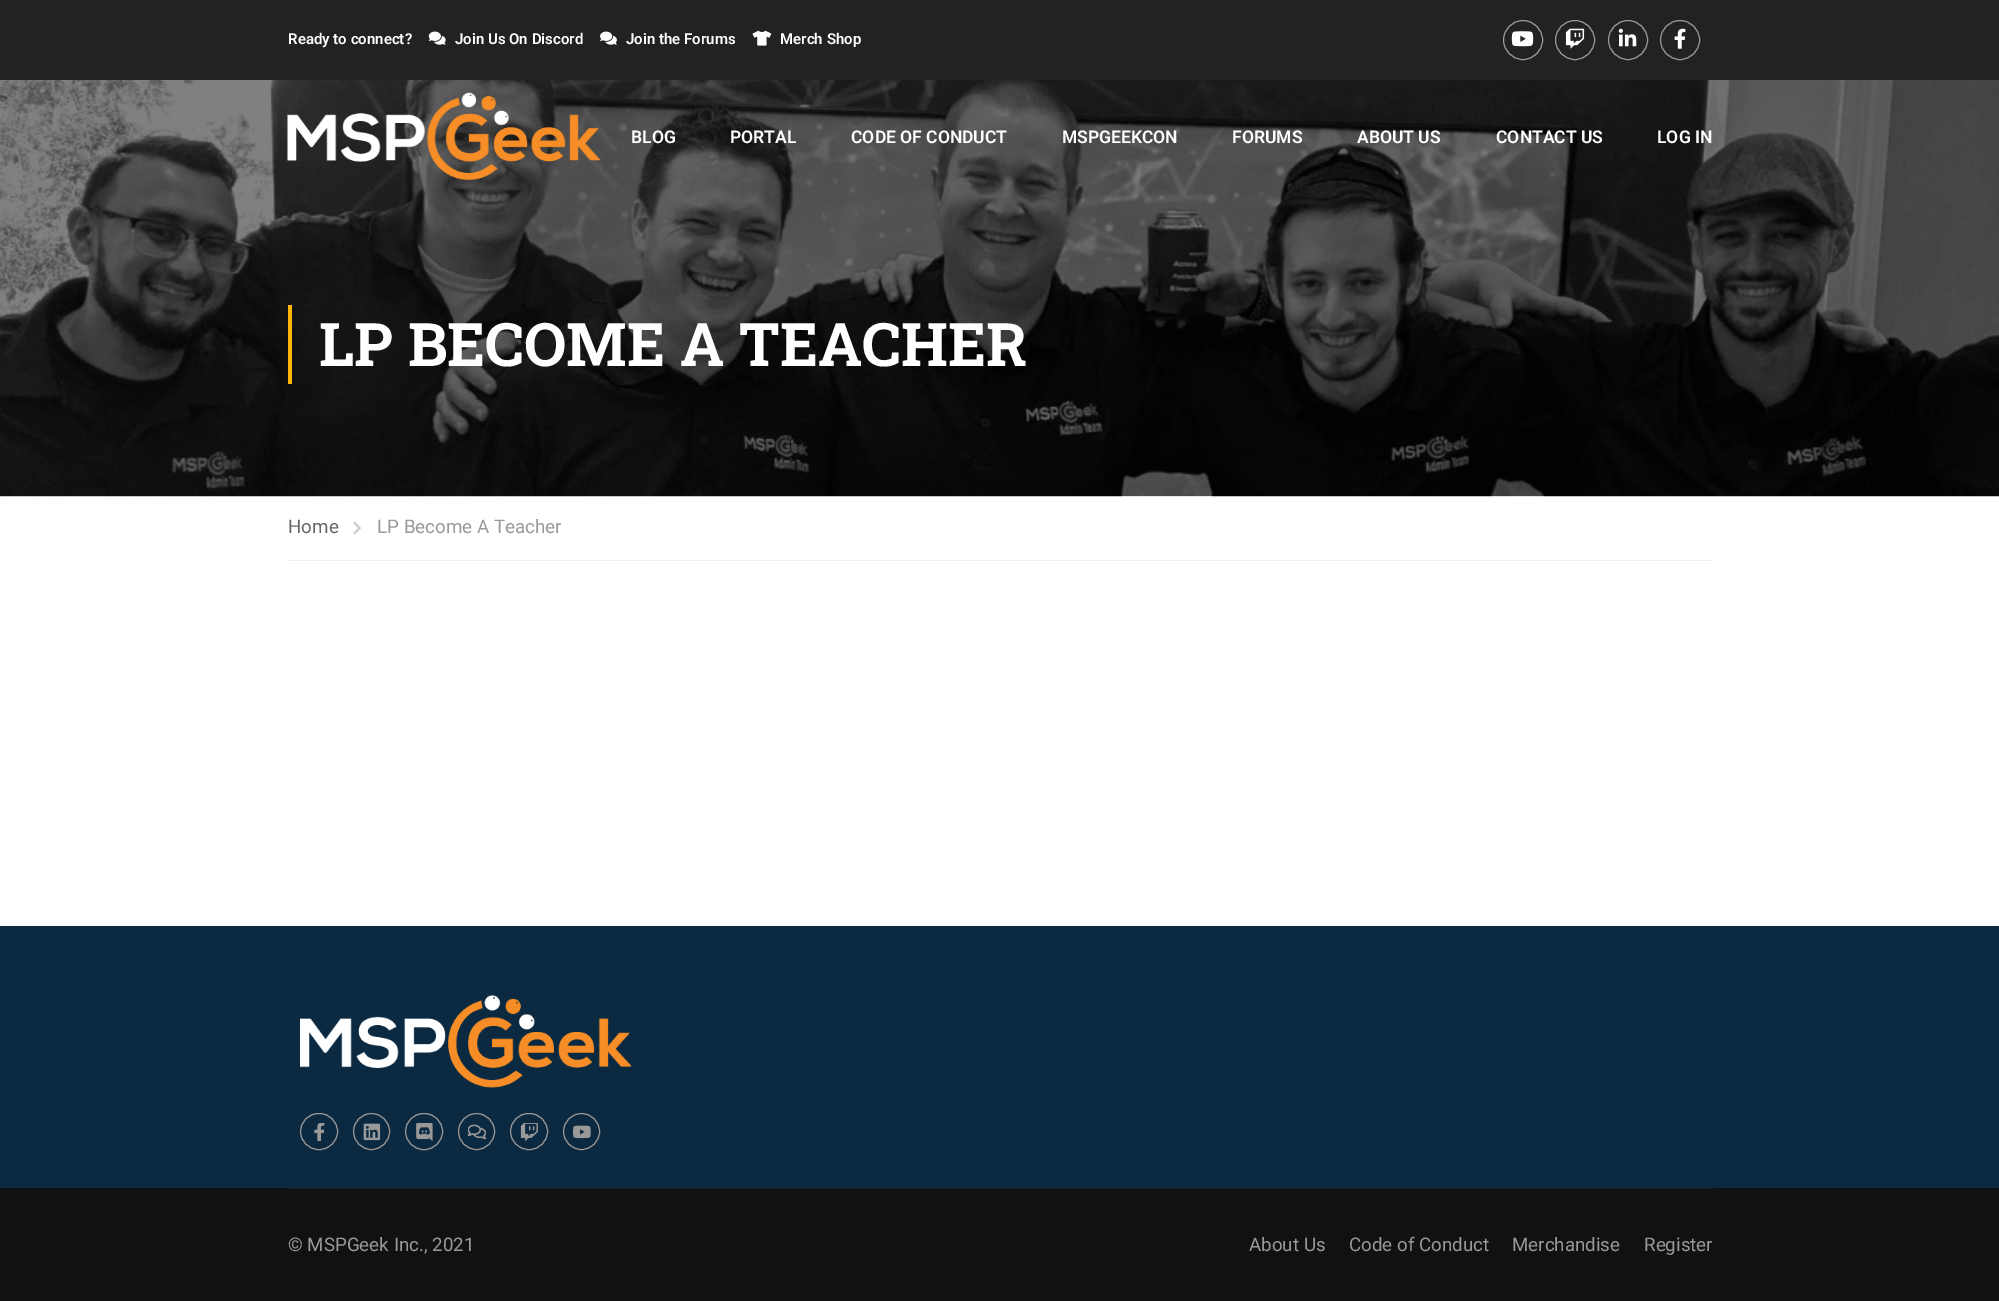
%!PS
<< /PageSize [1999 1301] >> setpagedevice
/rgb { 3 { 255 div 3 1 roll } repeat setrgbcolor } def
/font { [ exch dup neg 0 0 3 -1 roll 0 0 ] selectfont } def
/text { moveto show } def
/circle { newpath 0 360 arc closepath } def
/roundrect { 5 dict begin { /r /h /w /y /x } { exch def } forall
  x r add y moveto x w add y 2 copy h add r arct x w add y h add x 1 index r arct
  x y h add x y r arct x y 2 copy exch w add exch r arct closepath end } def
/picture { 5 dict begin { /h /w /y /x /name } { exch def } forall
  gsave x y translate w h scale
  w h 8 [w 0 0 h 0 0] name (r) file false 3 colorimage grestore end } def
0 1301 translate 1 -1 scale
4 setmiterlimit
255 255 255 rgb
0 0 1999 1301 rectfill
34 34 34 rgb
0 0 1999 80 rectfill
(img_01.rgb) 428 31 18 14 picture
(img_02.rgb) 600 31 17 14 picture
(img_03.rgb) 752 30 20 16 picture
153 153 153 rgb
1523 40 19.5 circle stroke
(img_04.rgb) 1511 31 23 16 picture
1575 40 19.5 circle stroke
(img_05.rgb) 1565 28 20 21 picture
1628 40 19.5 circle stroke
(img_06.rgb) 1618 28 19 19 picture
1680 40 19.5 circle stroke
(img_07.rgb) 1674 28 12 21 picture
(img_09.rgb) 0 80 1999 417 picture
(img_08.rgb) 287 92 313 88 picture
255 182 6 rgb
288 305 4 79 rectfill
238 238 238 rgb
288 560 1425 1 rectfill
(img_10.rgb) 353 521 8 14 picture
11 42 66 rgb
0 926 1999 262 rectfill
(img_11.rgb) 300 995 332 93 picture
153 153 153 rgb
300.5 1113.5 37 36 18 roundrect stroke
(img_12.rgb) 314 1123 11 18 picture
371.5 1131.5 18 circle stroke
(img_13.rgb) 363 1123 18 18 picture
405.5 1113.5 37 36 18 roundrect stroke
(img_14.rgb) 416 1123 17 18 picture
476.5 1131.5 18 circle stroke
(img_15.rgb) 468 1124 18 16 picture
510.5 1113.5 37 36 18 roundrect stroke
(img_16.rgb) 520 1123 18 18 picture
581.5 1131.5 18 circle stroke
(img_17.rgb) 573 1125 18 14 picture
17 17 17 rgb
0 1188 1999 113 rectfill
34 34 34 rgb
288 1188 1425 1 rectfill
/Roboto-SemiBold 15 font
255 255 255 rgb
(Ready to connect?) 288 44 text
(Join Us On Discord) 455 44 text
(Join the Forums) 626 44 text
(Merch Shop) 780 44 text
/Roboto-SemiBold 17.5 font
(BLOG) 631 143 text
(PORTAL) 730 143 text
(CODE OF CONDUCT) 851 143 text
(MSPGEEKCON) 1062 143 text
(FORUMS) 1232 143 text
(ABOUT US) 1357 143 text
(CONTACT US) 1496 143 text
(LOG IN) 1657 143 text
/RobotoSlab-Bold 60 font
(LP BECOME A TEACHER) 319 366 text
/Roboto-Regular 18.75 font
102 102 102 rgb
(Home) 288 533 text
153 153 153 rgb
(LP Become A Teacher) 377 533 text
(© MSPGeek Inc., 2021) 288 1251 text
(About Us) 1249 1251 text
(Code of Conduct) 1349 1251 text
(Merchandise) 1512 1251 text
(Register) 1644 1251 text
showpage
